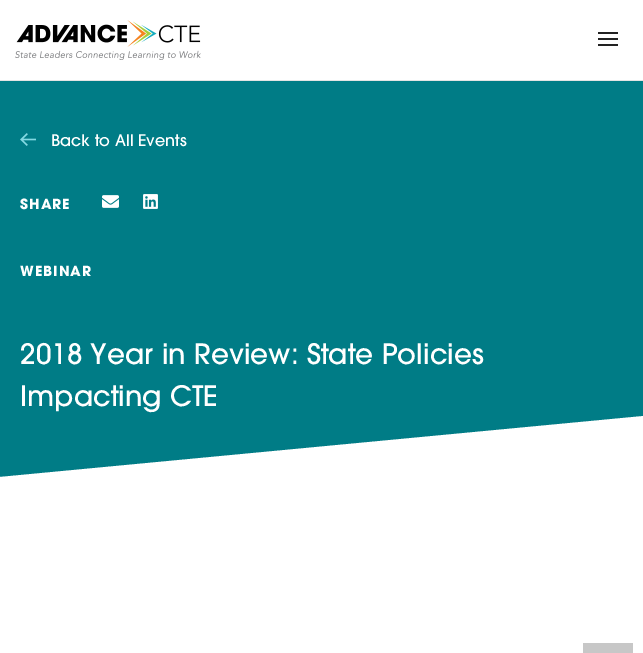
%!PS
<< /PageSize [643 653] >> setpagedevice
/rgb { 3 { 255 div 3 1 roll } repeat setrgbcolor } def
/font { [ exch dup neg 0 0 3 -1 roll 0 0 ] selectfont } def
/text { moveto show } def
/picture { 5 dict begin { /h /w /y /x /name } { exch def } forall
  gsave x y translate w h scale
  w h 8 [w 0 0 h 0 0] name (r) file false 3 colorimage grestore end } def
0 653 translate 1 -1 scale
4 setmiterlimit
255 255 255 rgb
0 0 643 653 rectfill
228 228 228 rgb
0 80 643 1 rectfill
(img_01.rgb) 15 20 186 40 picture
34 34 34 rgb
598 38 20 2 rectfill
598 32 20 2 rectfill
598 44 20 2 rectfill
0 124 134 rgb
0 81 643 396 rectfill
(img_02.rgb) 20 133 16 13 picture
(img_03.rgb) 102 195 17 13 picture
(img_04.rgb) 143 194 15 15 picture
255 255 255 rgb
0 477 moveto 0 4 rlineto 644 0 rlineto 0 -65 rlineto closepath fill
199 199 199 rgb
583 643 50 10 rectfill
/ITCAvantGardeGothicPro-Medium 16 font
255 255 255 rgb
(Back to All Events) 51 146 text
/ITCAvantGardeGothicPro-Bold 14 font
20 209 moveto 1 0 (SHARE) ashow
20 276 moveto 1 0 (WEBINAR) ashow
/ITCAvantGardeGothicPro-Medium 28 font
(2018 Year in Review: State Policies) 20 364 text
(Impacting CTE) 20 406 text
showpage
